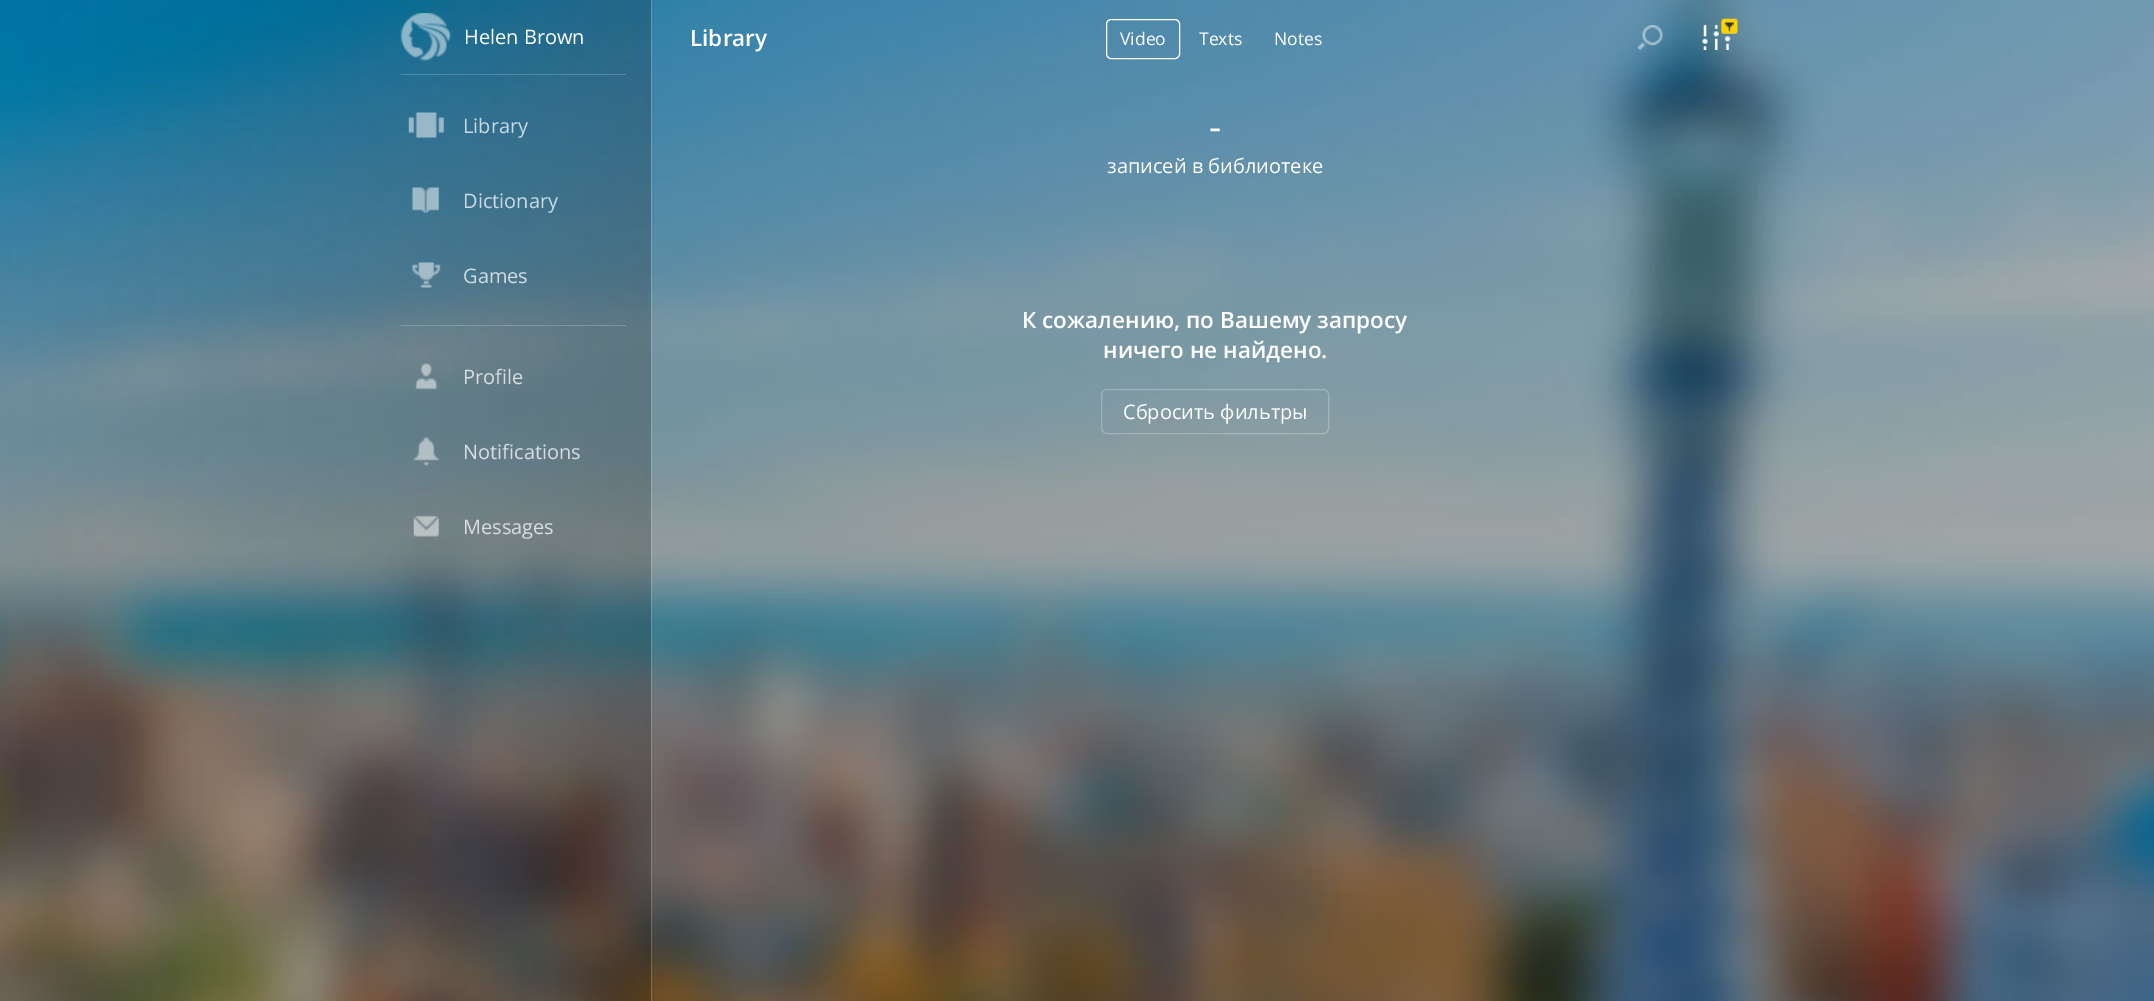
%!PS
<< /PageSize [2154 1001] /PageUsesTransparency true >> setpagedevice
/rgb { 3 { 255 div 3 1 roll } repeat setrgbcolor } def
/font { [ exch dup neg 0 0 3 -1 roll 0 0 ] selectfont } def
/text { moveto show } def
/alpha { dup .setfillconstantalpha .setstrokeconstantalpha } def
/roundrect { 5 dict begin { /r /h /w /y /x } { exch def } forall
  x r add y moveto x w add y 2 copy h add r arct x w add y h add x 1 index r arct
  x y h add x y r arct x y 2 copy exch w add exch r arct closepath end } def
/picture { 5 dict begin { /h /w /y /x /name } { exch def } forall
  gsave x y translate w h scale
  w h 8 [w 0 0 h 0 0] name (r) file false 3 colorimage grestore end } def
0 .pushpdf14devicefilter
0 1001 translate 1 -1 scale
4 setmiterlimit
255 255 255 rgb
0 0 2154 1001 rectfill
(img_01.rgb) 0 0 2154 1001 picture
0.2 alpha
651 0 1 1001 rectfill
401 74 225 1 rectfill
1 alpha
(img_02.rgb) 400 13 51 48 picture
(img_03.rgb) 408 112 36 26 picture
(img_04.rgb) 411 187 28 26 picture
(img_05.rgb) 411 262 30 26 picture
0.2 alpha
401 325 225 1 rectfill
1 alpha
(img_06.rgb) 415 363 22 27 picture
(img_07.rgb) 413 437 26 29 picture
(img_08.rgb) 413 515 26 22 picture
1106.5 19.5 73 39 4.5 roundrect stroke
(img_09.rgb) 1637 25 26 25 picture
(img_10.rgb) 1702 18 36 32 picture
0.25 alpha
1101.5 389.5 227 44 5.5 roundrect stroke
/OpenSans-Regular 20 font
1 alpha
(Helen Brown) 464 44 text
204 219 227 rgb
(Library) 463 133 text
(Dictionary) 463 208 text
210 221 226 rgb
(Games) 463 283 text
216 222 225 rgb
(Profile) 463 384 text
(Notifications) 463 459 text
(Messages) 463 534 text
/OpenSans-SemiBold 22.5 font
255 255 255 rgb
(Library) 690 46 text
/OpenSans-Regular 17.5 font
(Video) 1120 45 text
(Texts) 1199 45 text
(Notes) 1274 45 text
/OpenSans-Regular 38 font
(-) 1209 140 text
/OpenSans-Regular 20 font
(записей в библиотеке) 1107 173 text
/OpenSans-SemiBold 22.5 font
(К сожалению, по Вашему запросу) 1022 328 text
(ничего не найдено.) 1103 358 text
/OpenSans-Regular 20 font
(Сбросить фильтры) 1123 419 text
.poppdf14devicefilter showpage
